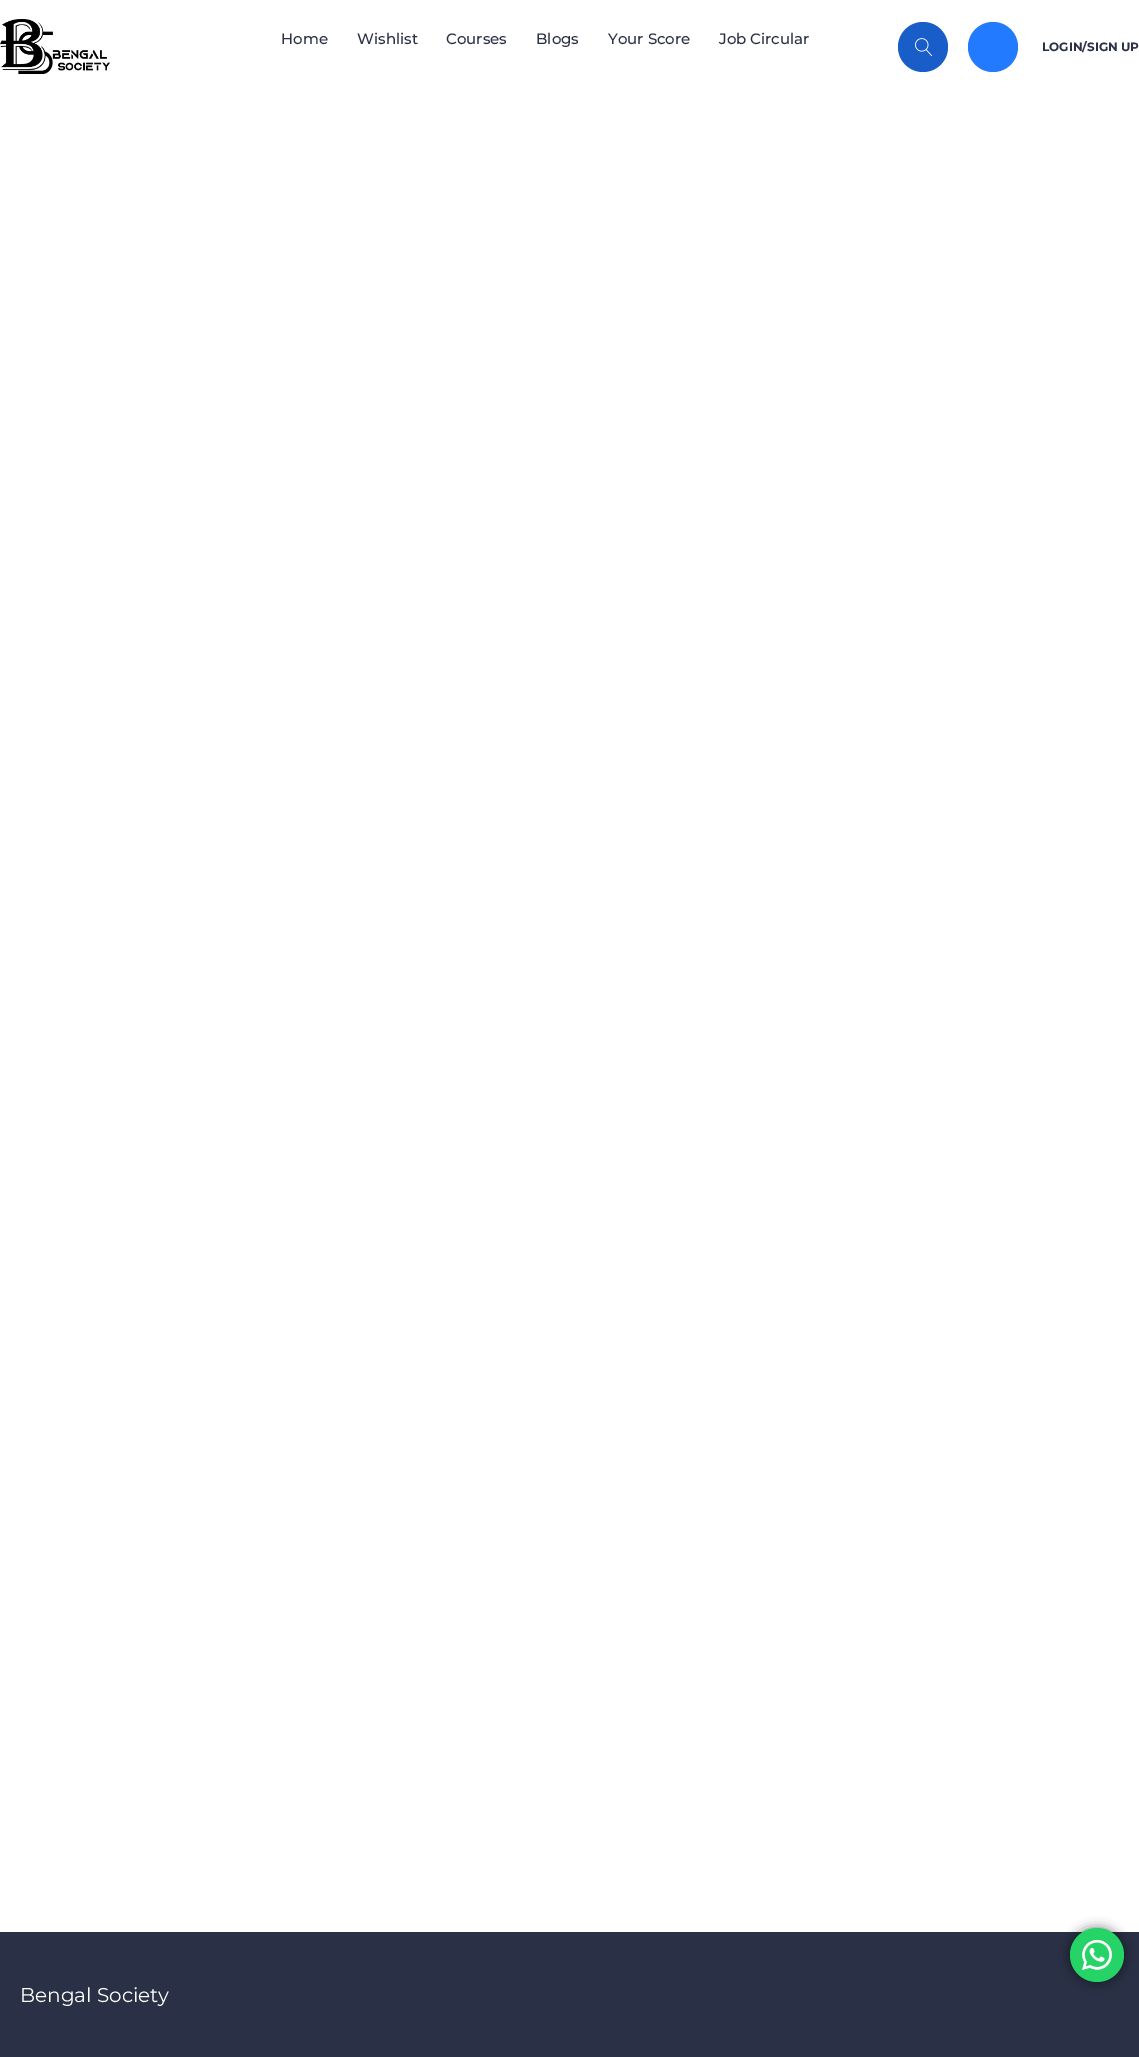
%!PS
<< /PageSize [1139 2057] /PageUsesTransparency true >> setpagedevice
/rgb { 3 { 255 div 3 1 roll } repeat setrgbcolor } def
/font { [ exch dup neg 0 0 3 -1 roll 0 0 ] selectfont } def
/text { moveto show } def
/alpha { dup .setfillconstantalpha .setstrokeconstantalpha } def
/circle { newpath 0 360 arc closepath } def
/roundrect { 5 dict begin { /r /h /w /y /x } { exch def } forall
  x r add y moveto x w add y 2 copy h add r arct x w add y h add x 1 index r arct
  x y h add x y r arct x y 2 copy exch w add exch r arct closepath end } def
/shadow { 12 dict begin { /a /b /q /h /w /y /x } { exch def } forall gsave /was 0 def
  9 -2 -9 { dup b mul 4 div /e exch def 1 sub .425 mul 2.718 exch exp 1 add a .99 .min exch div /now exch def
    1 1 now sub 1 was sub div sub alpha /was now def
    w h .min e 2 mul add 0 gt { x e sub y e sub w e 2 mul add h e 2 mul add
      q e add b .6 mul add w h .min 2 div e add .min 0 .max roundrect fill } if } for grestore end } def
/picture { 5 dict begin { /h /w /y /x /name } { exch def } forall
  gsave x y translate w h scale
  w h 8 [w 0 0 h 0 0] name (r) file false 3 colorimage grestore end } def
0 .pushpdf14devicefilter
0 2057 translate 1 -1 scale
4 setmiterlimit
255 255 255 rgb
0 0 1139 2057 rectfill
(img_01.rgb) 0 19 110 55 picture
25 94 200 rgb
923 47 25 circle fill
(img_02.rgb) 915 38 18 19 picture
34 122 255 rgb
993 47 25 circle fill
42 48 69 rgb
0 1932 1139 125 rectfill
0 0 0 rgb
1070 1928 54 54 27 5.5 0.5 shadow
37 211 102 rgb
1097 1955 27 circle fill
(img_03.rgb) 1082 1940 30 30 picture
/Montserrat-Medium 15 font
42 48 69 rgb
(Home) 281 44 text
(Wishlist) 357 44 text
(Courses) 446 44 text
(Blogs) 536 44 text
(Your Score) 608 44 text
(Job Circular) 719 44 text
/Montserrat-Bold 12 font
(LOGIN/SIGN UP) 1042 51 text
/Montserrat-Regular 20 font
255 255 255 rgb
(Bengal Society) 20 2002 text
.poppdf14devicefilter showpage
